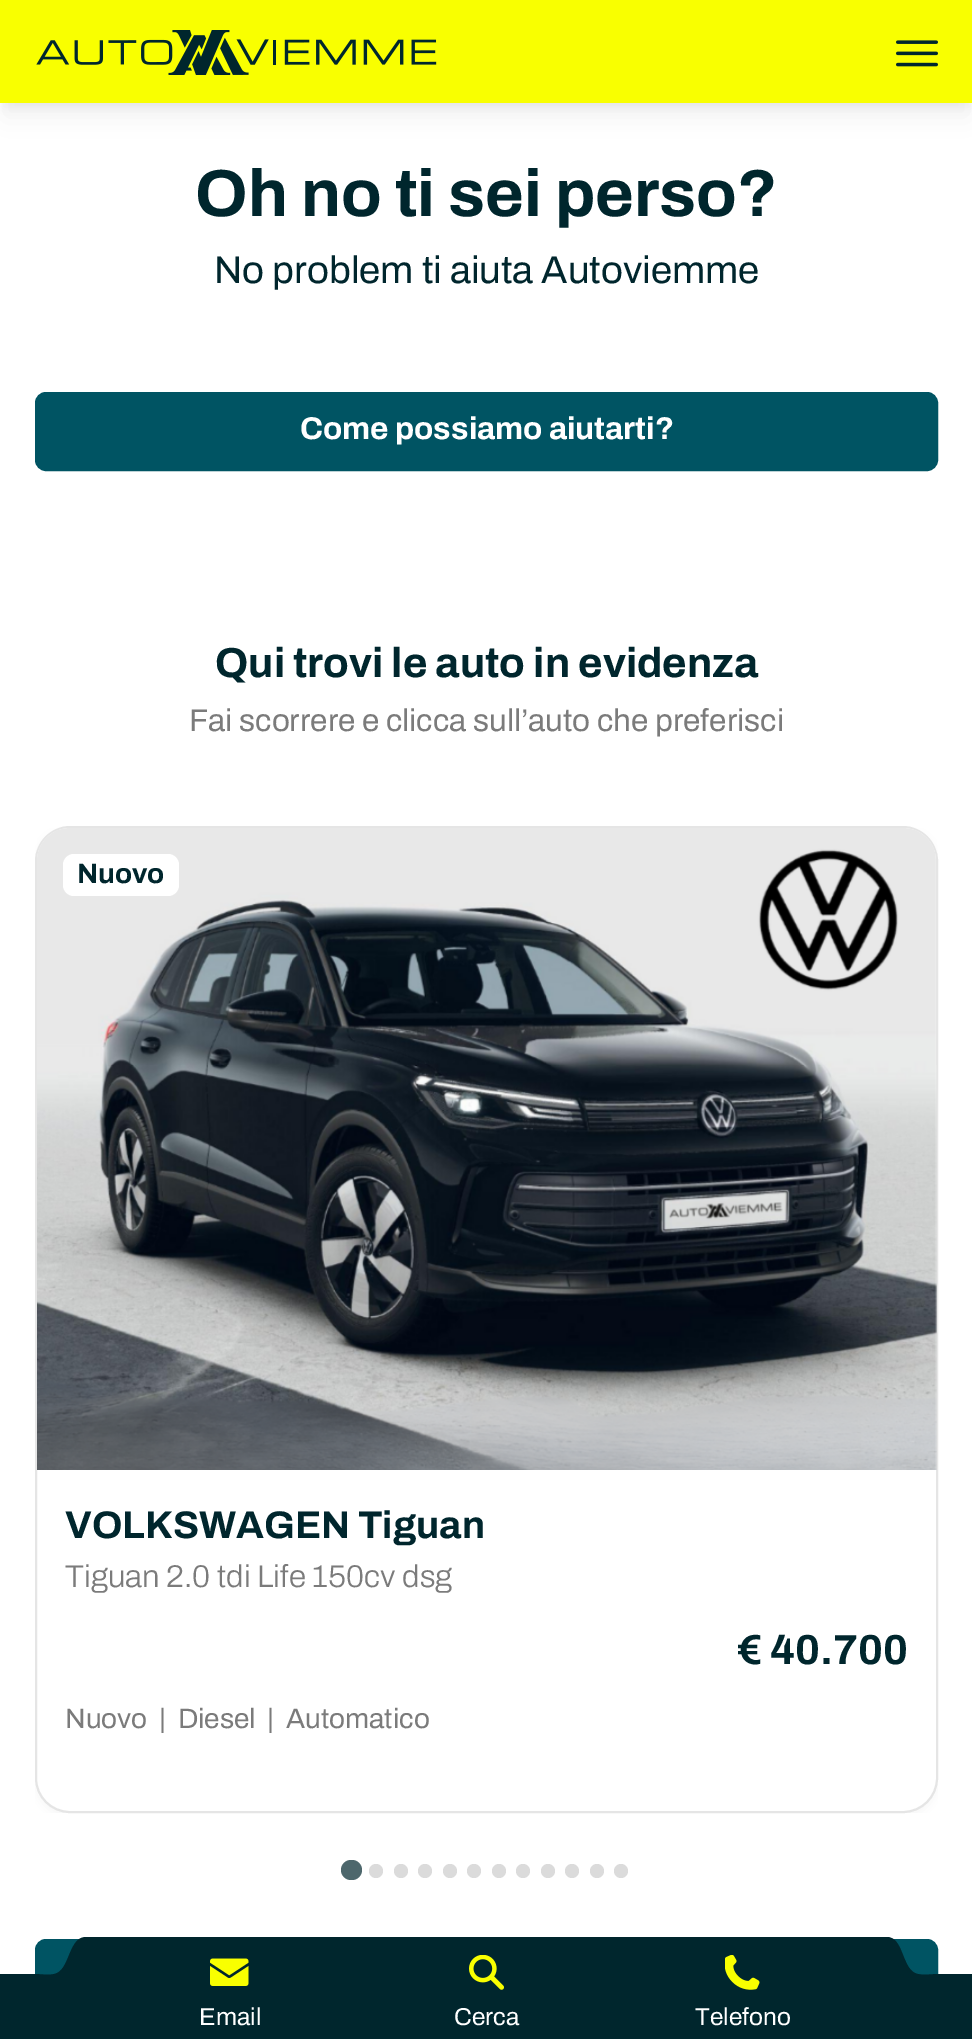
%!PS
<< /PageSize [972 2039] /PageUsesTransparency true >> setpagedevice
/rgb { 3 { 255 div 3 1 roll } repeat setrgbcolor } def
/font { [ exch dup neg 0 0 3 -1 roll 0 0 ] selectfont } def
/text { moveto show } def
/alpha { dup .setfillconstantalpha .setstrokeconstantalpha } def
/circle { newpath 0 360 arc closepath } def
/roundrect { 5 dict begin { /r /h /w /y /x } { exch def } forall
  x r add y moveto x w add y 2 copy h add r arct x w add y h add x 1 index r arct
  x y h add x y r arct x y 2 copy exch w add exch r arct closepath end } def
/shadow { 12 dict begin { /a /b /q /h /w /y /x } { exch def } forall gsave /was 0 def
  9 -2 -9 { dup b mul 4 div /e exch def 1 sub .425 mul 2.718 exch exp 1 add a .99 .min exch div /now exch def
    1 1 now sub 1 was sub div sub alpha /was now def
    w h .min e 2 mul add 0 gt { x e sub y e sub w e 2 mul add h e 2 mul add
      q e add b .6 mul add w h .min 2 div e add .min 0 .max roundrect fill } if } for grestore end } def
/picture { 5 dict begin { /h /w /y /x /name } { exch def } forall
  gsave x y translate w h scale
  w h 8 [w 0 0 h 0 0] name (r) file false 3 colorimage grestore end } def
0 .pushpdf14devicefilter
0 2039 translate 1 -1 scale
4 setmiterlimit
255 255 255 rgb
0 0 972 2039 rectfill
0 0 0 rgb
4 11 966 96 0 5 0.05 shadow
5 23 963 93 0 13 0.05 shadow
249 255 0 rgb
0 0 972 103 rectfill
(img_01.rgb) 36 30 401 45 picture
(img_02.rgb) 896 40 42 27 picture
0 84 99 rgb
36 393 901 77 10 roundrect gsave fill grestore
2 setlinewidth
stroke
gsave
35 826 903 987 rectclip
0 0 0 rgb
35 831 903 987 35 5 0.04 shadow
grestore
255 255 255 rgb
36 827 901 985 34 roundrect gsave fill grestore
229 229 229 rgb
stroke
(img_03.rgb) 37 828 900 642 picture
255 255 255 rgb
63 854 116 42 11 roundrect fill
77 103 108 rgb
341 1860 21 20 10 roundrect fill
219 219 219 rgb
376 1871 7 circle fill
401 1871 7 circle fill
425 1871 7 circle fill
450 1871 7 circle fill
474 1871 7 circle fill
499 1871 7 circle fill
523 1871 7 circle fill
548 1871 7 circle fill
572 1871 7 circle fill
597 1871 7 circle fill
621 1871 7 circle fill
0 84 99 rgb
36 1940 901 77 10 roundrect gsave fill grestore
stroke
0 38 45 rgb
86 1937 moveto -17 0 -16 30 -29 36 rcurveto -6 3 -16 1 -23 1 rcurveto -34 0 rlineto 0 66 rlineto 176 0 rlineto 0 -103 rlineto closepath fill
176 1937 620 102 rectfill
(img_04.rgb) 210 1958 39 28 picture
(img_05.rgb) 469 1955 35 35 picture
(img_06.rgb) 725 1955 35 35 picture
887 1937 moveto 16 0 15 30 28 36 rcurveto 6 3 17 1 23 1 rcurveto 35 0 rlineto 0 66 rlineto -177 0 rlineto 0 -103 rlineto closepath fill
/Archivo-Bold 66.5 font
(Oh no ti sei perso?) 195 216 text
/Archivo-Regular 38.5 font
(No problem ti aiuta Autoviemme) 214 283 text
/Archivo-Bold 31.5 font
255 255 255 rgb
(Come possiamo aiutarti?) 300 439 text
/Archivo-Bold 42 font
0 38 45 rgb
(Qui trovi le auto in evidenza) 215 677 text
/Archivo-Regular 31.5 font
123 123 123 rgb
(Fai scorrere e clicca sull’auto che preferisci) 189 731 text
/Archivo-Bold 28 font
0 38 45 rgb
(Nuovo) 77 883 text
/Archivo-Bold 38.5 font
(VOLKSWAGEN Tiguan) 65 1538 text
/Archivo-Light 31.5 font
123 123 123 rgb
(Tiguan 2.0 tdi Life 150cv dsg) 65 1587 text
/Archivo-Bold 42 font
0 38 45 rgb
(€ 40.700) 737 1664 text
/Archivo-Regular 28 font
123 123 123 rgb
(Nuovo  |  Diesel  |  Automatico) 65 1728 text
/Archivo-Regular 24.5 font
255 255 255 rgb
(Email) 199 2025 text
(Cerca) 454 2025 text
(Telefono) 695 2025 text
.poppdf14devicefilter showpage
